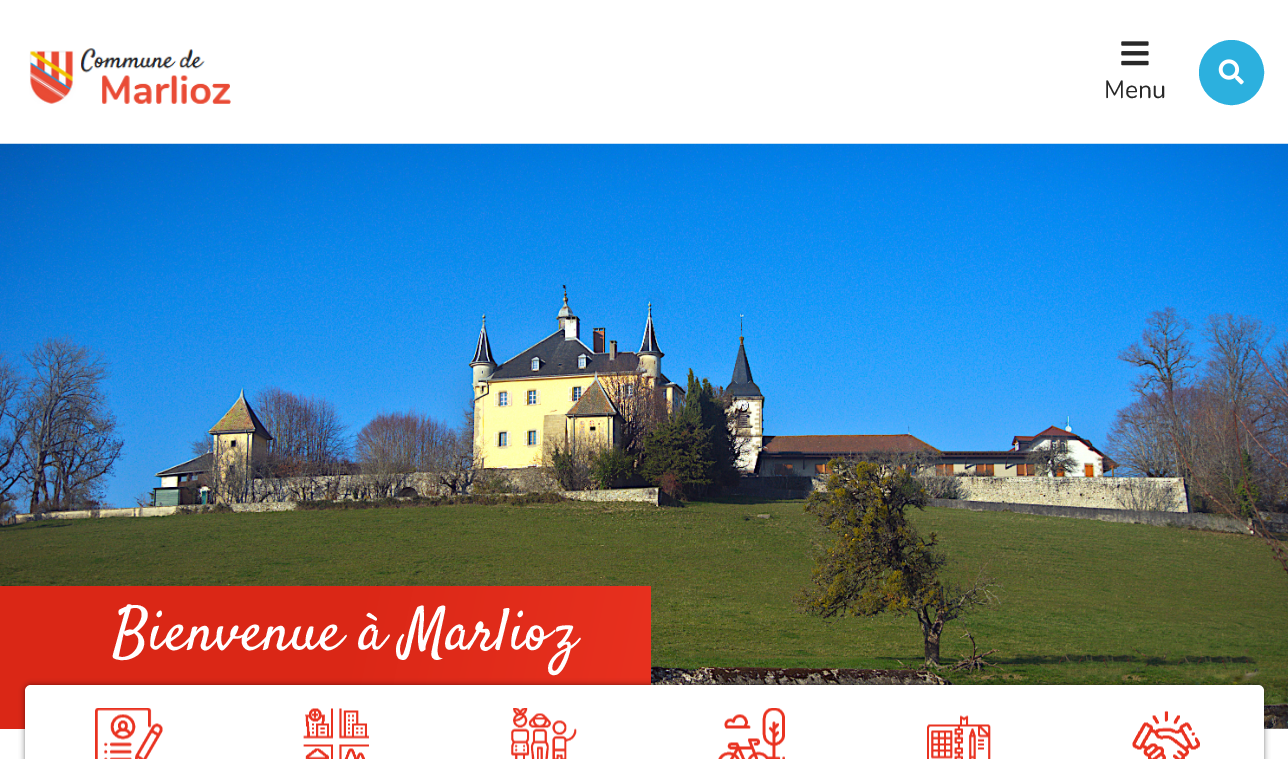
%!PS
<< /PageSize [1288 759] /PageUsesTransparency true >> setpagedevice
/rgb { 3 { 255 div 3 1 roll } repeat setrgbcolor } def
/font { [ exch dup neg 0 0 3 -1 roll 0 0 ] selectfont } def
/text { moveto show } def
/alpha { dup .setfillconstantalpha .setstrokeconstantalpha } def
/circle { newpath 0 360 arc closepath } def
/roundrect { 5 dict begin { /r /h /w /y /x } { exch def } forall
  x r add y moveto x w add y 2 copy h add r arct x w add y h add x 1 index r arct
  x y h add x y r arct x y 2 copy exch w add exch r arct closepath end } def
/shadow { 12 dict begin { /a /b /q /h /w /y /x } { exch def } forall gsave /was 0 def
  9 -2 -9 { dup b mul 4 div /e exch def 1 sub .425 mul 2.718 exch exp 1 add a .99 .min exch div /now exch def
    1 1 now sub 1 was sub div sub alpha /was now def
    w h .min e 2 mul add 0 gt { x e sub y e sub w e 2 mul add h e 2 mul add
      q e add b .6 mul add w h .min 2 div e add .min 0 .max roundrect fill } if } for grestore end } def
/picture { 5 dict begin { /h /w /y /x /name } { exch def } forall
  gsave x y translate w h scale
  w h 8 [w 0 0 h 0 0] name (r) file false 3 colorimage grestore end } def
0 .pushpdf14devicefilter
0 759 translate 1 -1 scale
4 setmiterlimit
255 255 255 rgb
0 0 1288 759 rectfill
(img_01.rgb) 29 48 202 56 picture
(img_02.rgb) 1121 41 28 25 picture
44 176 222 rgb
1231.5 72.5 31 circle gsave fill grestore
3 setlinewidth
stroke
(img_03.rgb) 1218 59 26 26 picture
(img_04.rgb) 0 143 1288 586 picture
gsave 0 586 moveto 156 0 rlineto 0 143 rlineto -156 0 rlineto closepath clip newpath
<< /ShadingType 2 /ColorSpace /DeviceRGB /Coords [-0.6 589 660 728] /Extend [true true] /Function << /FunctionType 3 /Domain [0 1] /Functions [<< /FunctionType 2 /Domain [0 1] /C0 [0.855 0.153 0.086] /C1 [0.855 0.153 0.086] /N 1 >> << /FunctionType 2 /Domain [0 1] /C0 [0.855 0.153 0.086] /C1 [0.914 0.196 0.125] /N 1 >>] /Bounds [0.36] /Encode [0 1 0 1] >> >> shfill grestore
gsave 156 586 moveto 495 0 rlineto 0 99 rlineto -495 0 rlineto closepath clip newpath
<< /ShadingType 2 /ColorSpace /DeviceRGB /Coords [152 605 662 711] /Extend [true true] /Function << /FunctionType 3 /Domain [0 1] /Functions [<< /FunctionType 2 /Domain [0 1] /C0 [0.855 0.153 0.086] /C1 [0.855 0.153 0.086] /N 1 >> << /FunctionType 2 /Domain [0 1] /C0 [0.855 0.153 0.086] /C1 [0.914 0.196 0.125] /N 1 >>] /Bounds [0.36] /Encode [0 1 0 1] >> >> shfill grestore
0 0 0 rgb
25 685 1239 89 6 3 0.5 shadow
255 255 255 rgb
25 685 1239 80 6 roundrect fill
(img_05.rgb) 95 708 68 51 picture
(img_06.rgb) 303 708 66 51 picture
(img_07.rgb) 511 708 66 51 picture
(img_08.rgb) 718 708 67 51 picture
(img_09.rgb) 927 715 64 44 picture
(img_10.rgb) 1132 710 68 49 picture
/Nunito-Regular 25 font
40 40 40 rgb
(Menu) 1104 98 text
/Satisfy-Regular 60 font
255 255 255 rgb
(Bienvenue à Marlioz) 113 649 text
.poppdf14devicefilter showpage
